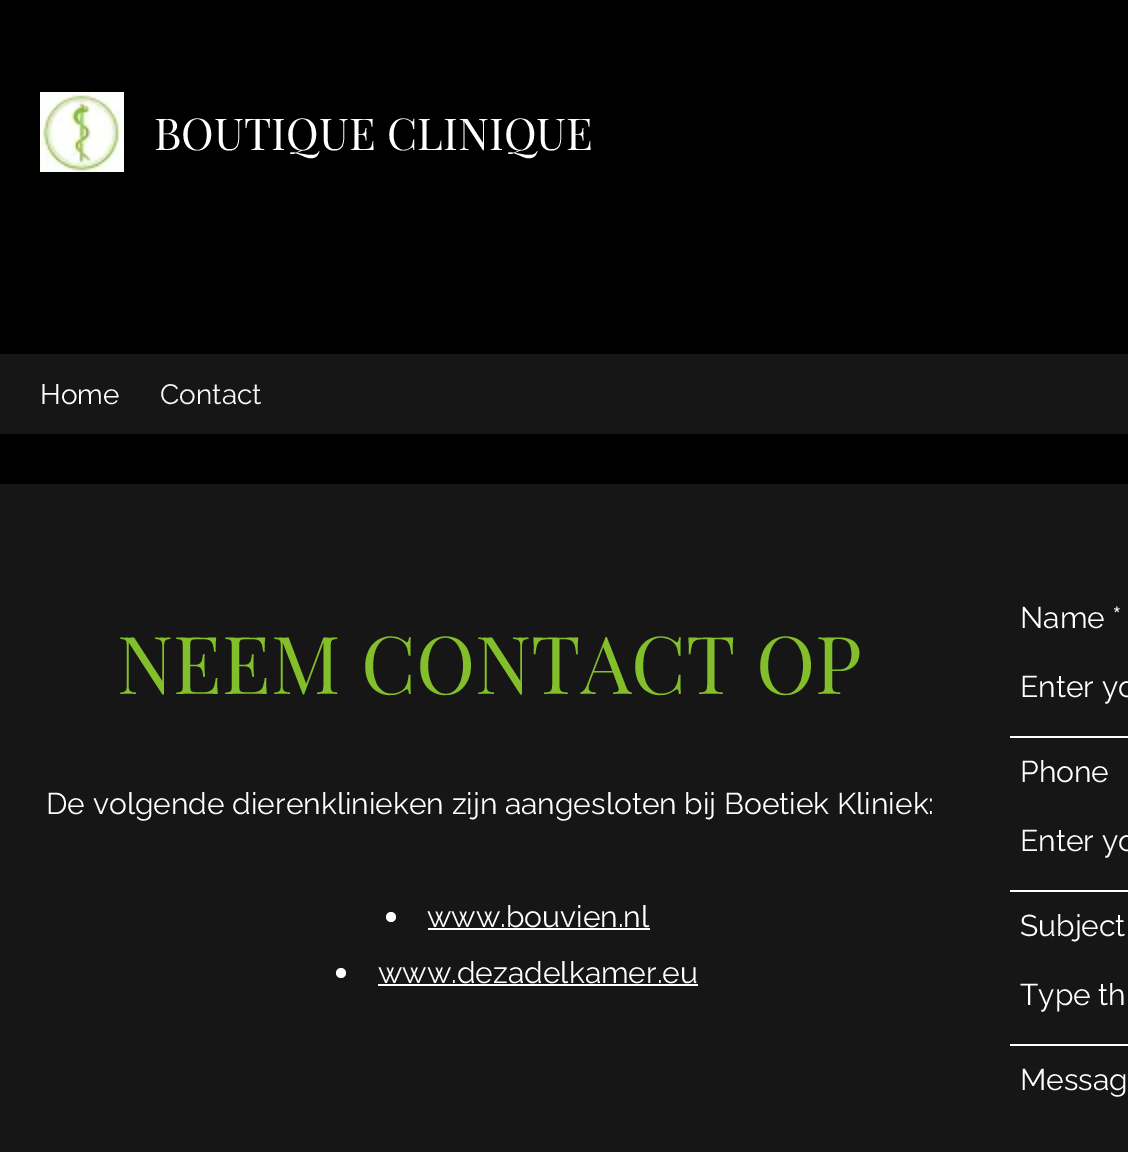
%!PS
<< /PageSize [1128 1152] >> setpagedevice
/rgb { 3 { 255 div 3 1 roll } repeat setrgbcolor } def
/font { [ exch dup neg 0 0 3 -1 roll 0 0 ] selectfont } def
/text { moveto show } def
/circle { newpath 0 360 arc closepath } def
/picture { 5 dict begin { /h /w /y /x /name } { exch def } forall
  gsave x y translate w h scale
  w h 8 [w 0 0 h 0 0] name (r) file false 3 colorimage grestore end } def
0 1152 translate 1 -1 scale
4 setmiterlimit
22 22 22 rgb
0 0 1128 1152 rectfill
0 0 0 rgb
0 0 1128 484 rectfill
(img_01.rgb) 40 92 84 80 picture
22 22 22 rgb
0 354 1128 80 rectfill
255 255 255 rgb
391 917 5 circle fill
428 928 222 2 rectfill
341 973 5 circle fill
378 984 320 2 rectfill
1010 736 118 2 rectfill
1010 890 118 2 rectfill
1010 1044 118 2 rectfill
/PlayfairDisplay-Regular 44 font
(BOUTIQUE CLINIQUE) 154 150 text
/Raleway-Regular 28 font
(Home) 40 404 text
244 249 245 rgb
(Contact) 160 404 text
/PlayfairDisplay-Regular 80 font
131 190 43 rgb
(NEEM CONTACT OP) 117 694 text
/Raleway-Regular 30 font
255 255 255 rgb
(De volgende dierenklinieken zijn aangesloten bij Boetiek Kliniek:) 46 814 text
(www.bouvien.nl) 427 927 text
(www.dezadelkamer.eu) 378 983 text
(Name *) 1020 628 text
(Enter yo) 1020 697 text
(Phone) 1020 782 text
(Enter yo) 1020 851 text
(Subject) 1020 936 text
(Type th) 1020 1005 text
(Messag) 1020 1090 text
showpage
